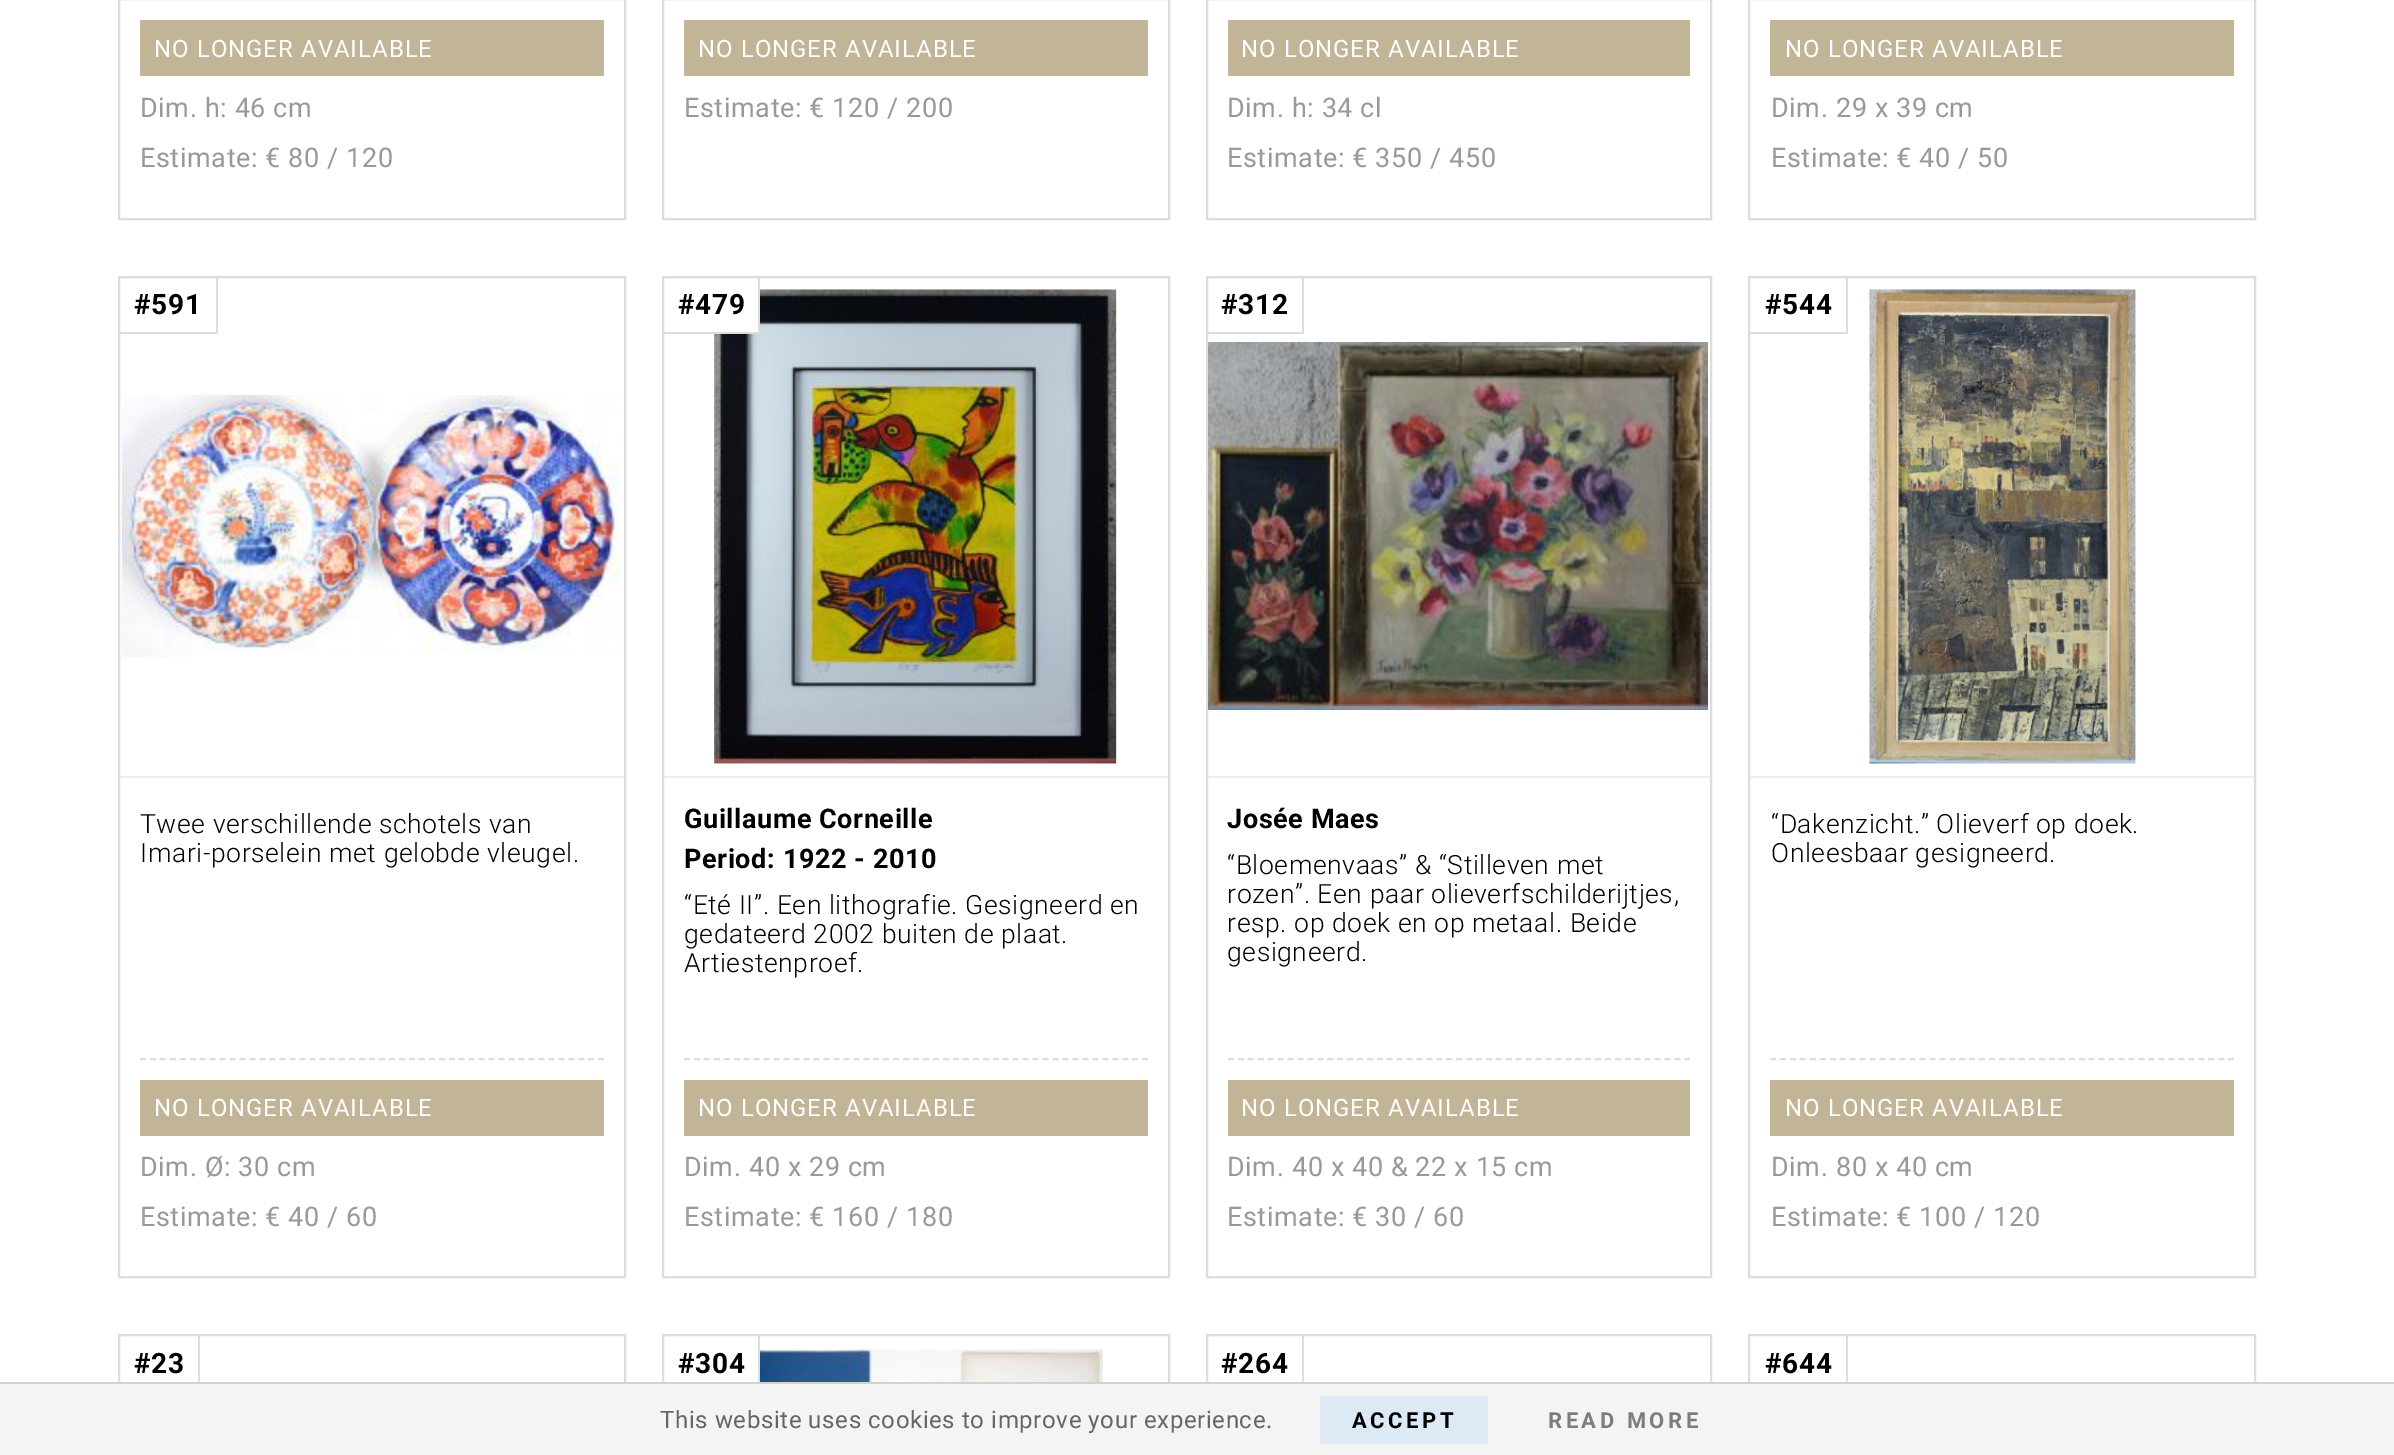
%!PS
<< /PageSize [2394 1455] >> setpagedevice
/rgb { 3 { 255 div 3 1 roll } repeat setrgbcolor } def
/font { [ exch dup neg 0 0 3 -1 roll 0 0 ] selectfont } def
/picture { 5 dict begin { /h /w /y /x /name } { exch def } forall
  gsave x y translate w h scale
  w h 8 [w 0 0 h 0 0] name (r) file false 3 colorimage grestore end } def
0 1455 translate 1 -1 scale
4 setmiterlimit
255 255 255 rgb
0 0 2394 1455 rectfill
221 221 221 rgb
2 setlinewidth
119 -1 506 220 rectstroke
194 180 151 rgb
140 20 464 56 rectfill
221 221 221 rgb
663 -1 506 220 rectstroke
194 180 151 rgb
684 20 464 56 rectfill
221 221 221 rgb
1207 -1 504 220 rectstroke
194 180 151 rgb
1228 20 462 56 rectfill
221 221 221 rgb
1749 -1 506 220 rectstroke
194 180 151 rgb
1770 20 464 56 rectfill
221 221 221 rgb
119 277 506 1000 rectstroke
216 278 2 56 rectfill
120 332 98 2 rectfill
[6 3.96] 0 setdash
140 1059 moveto 464 0 rlineto stroke
194 180 151 rgb
140 1080 464 56 rectfill
238 238 238 rgb
120 776 504 2 rectfill
(img_01.rgb) 122 395 500 262 picture
221 221 221 rgb
[] 0 setdash
663 277 506 1000 rectstroke
238 238 238 rgb
664 776 504 2 rectfill
(img_02.rgb) 714 289 403 475 picture
255 255 255 rgb
714 289 44 43 rectfill
221 221 221 rgb
758 278 2 56 rectfill
664 332 96 2 rectfill
[6 3.96] 0 setdash
684 1059 moveto 464 0 rlineto stroke
194 180 151 rgb
684 1080 464 56 rectfill
221 221 221 rgb
[] 0 setdash
1207 277 504 1000 rectstroke
1302 278 2 56 rectfill
1208 332 96 2 rectfill
[6 3.92] 0 setdash
1228 1059 moveto 462 0 rlineto stroke
194 180 151 rgb
1228 1080 462 56 rectfill
238 238 238 rgb
1208 776 502 2 rectfill
(img_03.rgb) 1208 342 500 368 picture
221 221 221 rgb
[] 0 setdash
1749 277 506 1000 rectstroke
238 238 238 rgb
1750 776 504 2 rectfill
(img_04.rgb) 1869 289 267 475 picture
221 221 221 rgb
1846 278 2 56 rectfill
1750 332 98 2 rectfill
[6 3.96] 0 setdash
1770 1059 moveto 464 0 rlineto stroke
194 180 151 rgb
1770 1080 464 56 rectfill
221 221 221 rgb
[] 0 setdash
119 1335 506 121 rectstroke
198 1336 2 46 rectfill
663 1335 506 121 rectstroke
758 1336 2 46 rectfill
(img_05.rgb) 760 1349 343 33 picture
1207 1335 504 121 rectstroke
1302 1336 2 46 rectfill
1749 1335 506 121 rectstroke
1846 1336 2 46 rectfill
244 244 244 rgb
0 1384 2394 71 rectfill
210 210 210 rgb
0 1382 2394 2 rectfill
221 233 245 rgb
1320 1396 168 48 rectfill
/Roboto-Regular 24 font
255 255 255 rgb
154 57 moveto 1 0 (NO LONGER AVAILABLE) ashow
/Roboto-Regular 27 font
153 153 153 rgb
140 117 moveto 0.6 0 (Dim. h: 46 cm) ashow
140 167 moveto 0.6 0 (Estimate: € 80 / 120) ashow
/Roboto-Regular 24 font
255 255 255 rgb
698 57 moveto 1 0 (NO LONGER AVAILABLE) ashow
/Roboto-Regular 27 font
153 153 153 rgb
684 117 moveto 0.6 0 (Estimate: € 120 / 200) ashow
/Roboto-Regular 24 font
255 255 255 rgb
1241 57 moveto 1 0 (NO LONGER AVAILABLE) ashow
/Roboto-Regular 27 font
153 153 153 rgb
1227 117 moveto 0.6 0 (Dim. h: 34 cl) ashow
1227 167 moveto 0.6 0 (Estimate: € 350 / 450) ashow
/Roboto-Regular 24 font
255 255 255 rgb
1785 57 moveto 1 0 (NO LONGER AVAILABLE) ashow
/Roboto-Regular 27 font
153 153 153 rgb
1771 117 moveto 0.6 0 (Dim. 29 x 39 cm) ashow
1771 167 moveto 0.6 0 (Estimate: € 40 / 50) ashow
/Roboto-Bold 28 font
0 0 0 rgb
134 314 moveto 0.6 0 (#591) ashow
/Roboto-Light 26.5 font
140 833 moveto 0.6 0 (Twee verschillende schotels van) ashow
140 862 moveto 0.6 0 (Imari-porselein met gelobde vleugel.) ashow
/Roboto-Regular 24 font
255 255 255 rgb
154 1116 moveto 1 0 (NO LONGER AVAILABLE) ashow
/Roboto-Regular 27 font
153 153 153 rgb
140 1176 moveto 0.6 0 (Dim. Ø: 30 cm) ashow
140 1226 moveto 0.6 0 (Estimate: € 40 / 60) ashow
/Roboto-Bold 28 font
0 0 0 rgb
678 314 moveto 0.6 0 (#479) ashow
/Roboto-Bold 27 font
684 828 moveto 0.6 0 (Guillaume Corneille) ashow
684 868 moveto 0.6 0 (Period: 1922 - 2010) ashow
/Roboto-Light 26.5 font
684 914 moveto 0.6 0 (“Eté II”. Een lithografie. Gesigneerd en) ashow
684 943 moveto 0.6 0 (gedateerd 2002 buiten de plaat.) ashow
684 972 moveto 0.6 0 (Artiestenproef.) ashow
/Roboto-Regular 24 font
255 255 255 rgb
698 1116 moveto 1 0 (NO LONGER AVAILABLE) ashow
/Roboto-Regular 27 font
153 153 153 rgb
684 1176 moveto 0.6 0 (Dim. 40 x 29 cm) ashow
684 1226 moveto 0.6 0 (Estimate: € 160 / 180) ashow
/Roboto-Bold 28 font
0 0 0 rgb
1221 314 moveto 0.6 0 (#312) ashow
/Roboto-Bold 27 font
1227 828 moveto 0.6 0 (Josée Maes) ashow
/Roboto-Light 26.5 font
1227 874 moveto 0.6 0 (“Bloemenvaas” & “Stilleven met) ashow
1227 903 moveto 0.6 0 (rozen”. Een paar olieverfschilderijtjes,) ashow
1227 932 moveto 0.6 0 (resp. op doek en op metaal. Beide) ashow
1227 961 moveto 0.6 0 (gesigneerd.) ashow
/Roboto-Regular 24 font
255 255 255 rgb
1241 1116 moveto 1 0 (NO LONGER AVAILABLE) ashow
/Roboto-Regular 27 font
153 153 153 rgb
1227 1176 moveto 0.6 0 (Dim. 40 x 40 & 22 x 15 cm) ashow
1227 1226 moveto 0.6 0 (Estimate: € 30 / 60) ashow
/Roboto-Bold 28 font
0 0 0 rgb
1765 314 moveto 0.6 0 (#544) ashow
/Roboto-Light 26.5 font
1771 833 moveto 0.6 0 (“Dakenzicht.” Olieverf op doek.) ashow
1771 862 moveto 0.6 0 (Onleesbaar gesigneerd.) ashow
/Roboto-Regular 24 font
255 255 255 rgb
1785 1116 moveto 1 0 (NO LONGER AVAILABLE) ashow
/Roboto-Regular 27 font
153 153 153 rgb
1771 1176 moveto 0.6 0 (Dim. 80 x 40 cm) ashow
1771 1226 moveto 0.6 0 (Estimate: € 100 / 120) ashow
/Roboto-Bold 28 font
0 0 0 rgb
134 1373 moveto 0.6 0 (#23) ashow
678 1373 moveto 0.6 0 (#304) ashow
1221 1373 moveto 0.6 0 (#264) ashow
1765 1373 moveto 0.6 0 (#644) ashow
/Roboto-Regular 24 font
102 102 102 rgb
660 1428 moveto 0.6 0 (This website uses cookies to improve your experience.) ashow
/Roboto-Bold 22 font
0 0 0 rgb
1352 1428 moveto 3.5 0 (ACCEPT) ashow
125 125 125 rgb
1548 1428 moveto 3.5 0 (READ MORE) ashow
showpage
